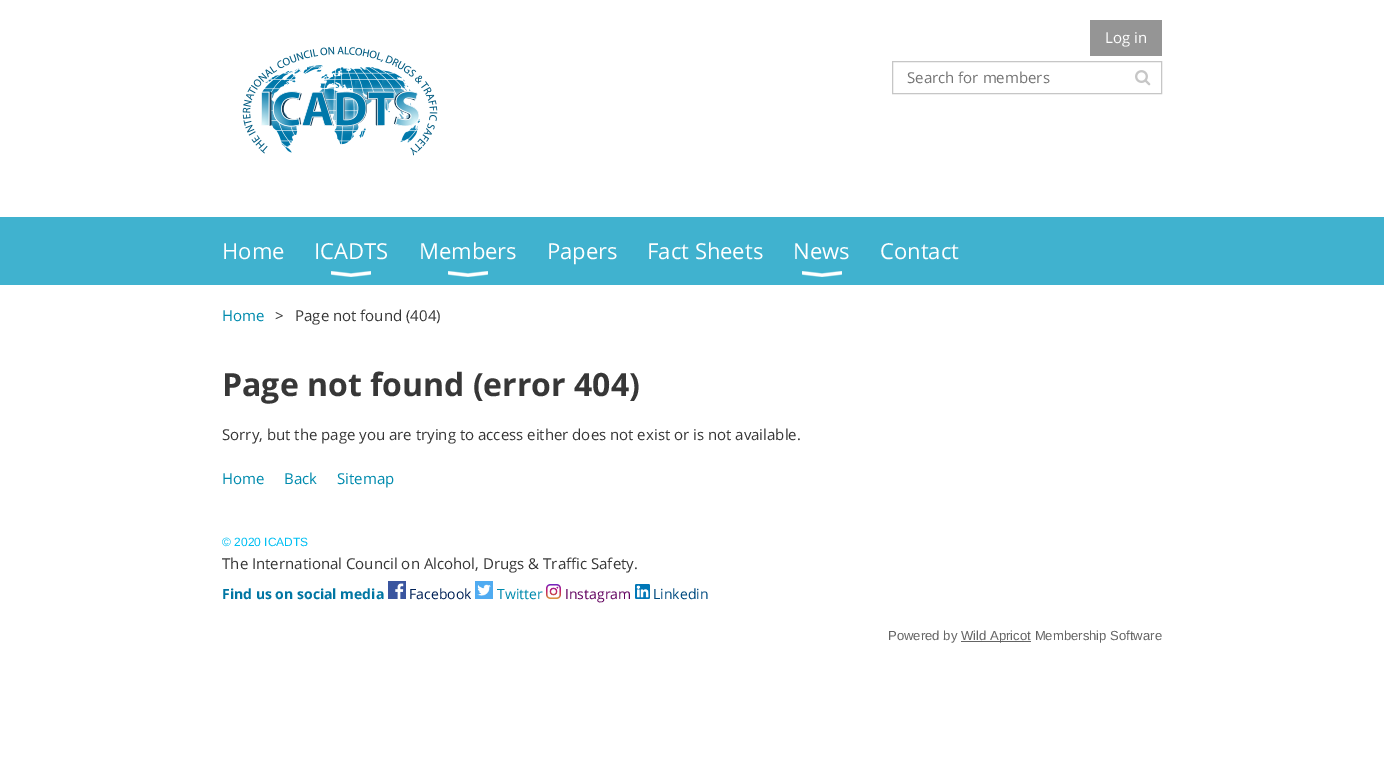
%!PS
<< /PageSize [1384 761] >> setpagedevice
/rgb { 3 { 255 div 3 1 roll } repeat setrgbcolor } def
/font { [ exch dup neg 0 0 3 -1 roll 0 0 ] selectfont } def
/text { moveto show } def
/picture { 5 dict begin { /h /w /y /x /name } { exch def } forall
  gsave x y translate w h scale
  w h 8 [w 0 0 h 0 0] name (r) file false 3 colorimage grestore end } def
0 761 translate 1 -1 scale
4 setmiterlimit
255 255 255 rgb
0 0 1384 761 rectfill
(img_01.rgb) 242 46 196 110 picture
149 149 149 rgb
1090 20 72 36 rectfill
198 198 198 rgb
892.5 61.5 269 32 rectstroke
(img_02.rgb) 1135 70 16 16 picture
64 178 207 rgb
0 217 1384 68 rectfill
(img_03.rgb) 331 271 40 6 picture
(img_03.rgb) 448 271 40 6 picture
(img_03.rgb) 802 271 40 6 picture
(img_04.rgb) 388 581 18 18 picture
(img_05.rgb) 475 581 18 18 picture
(img_06.rgb) 546 584 15 15 picture
(img_07.rgb) 635 584 15 15 picture
100 100 100 rgb
961 641 70 1 rectfill
/OpenSans-Regular 15 font
255 255 255 rgb
(Log in) 1105 43 text
117 117 117 rgb
(Search for members) 907 83 text
/OpenSans-Regular 22 font
255 255 255 rgb
(Home) 222 259 text
(ICADTS) 314 259 text
(Members) 419 259 text
(Papers) 547 259 text
(Fact Sheets) 647 259 text
(News) 793 259 text
(Contact) 880 259 text
/OpenSans-Regular 15 font
0 139 174 rgb
(Home) 222 321 text
55 55 55 rgb
(>) 275 321 text
(Page not found \(404\)) 295 321 text
/OpenSans-Bold 32 font
(Page not found \(error 404\)) 222 396 text
/OpenSans-Regular 15 font
(Sorry, but the page you are trying to access either does not exist or is not available.) 222 440 text
0 139 174 rgb
(Home) 222 484 text
(Back) 284 484 text
(Sitemap) 337 484 text
/LiberationSans-Regular 12 font
0 191 243 rgb
(© 2020 ICADTS) 222 546 text
/OpenSans-Regular 15 font
55 55 55 rgb
(The International Council on Alcohol, Drugs & Traffic Safety.) 222 569 text
/OpenSans-Bold 14 font
0 118 163 rgb
(Find us on social media) 222 599 text
/OpenSans-Regular 14 font
0 33 87 rgb
(Facebook) 409 599 text
0 139 174 rgb
(Twitter) 497 599 text
99 4 96 rgb
(Instagram) 565 599 text
0 75 128 rgb
(Linkedin) 653 599 text
/LiberationSans-Regular 13.1 font
100 100 100 rgb
(Powered by) 888 640 text
(Wild Apricot Membership Software) 961 640 text
showpage
